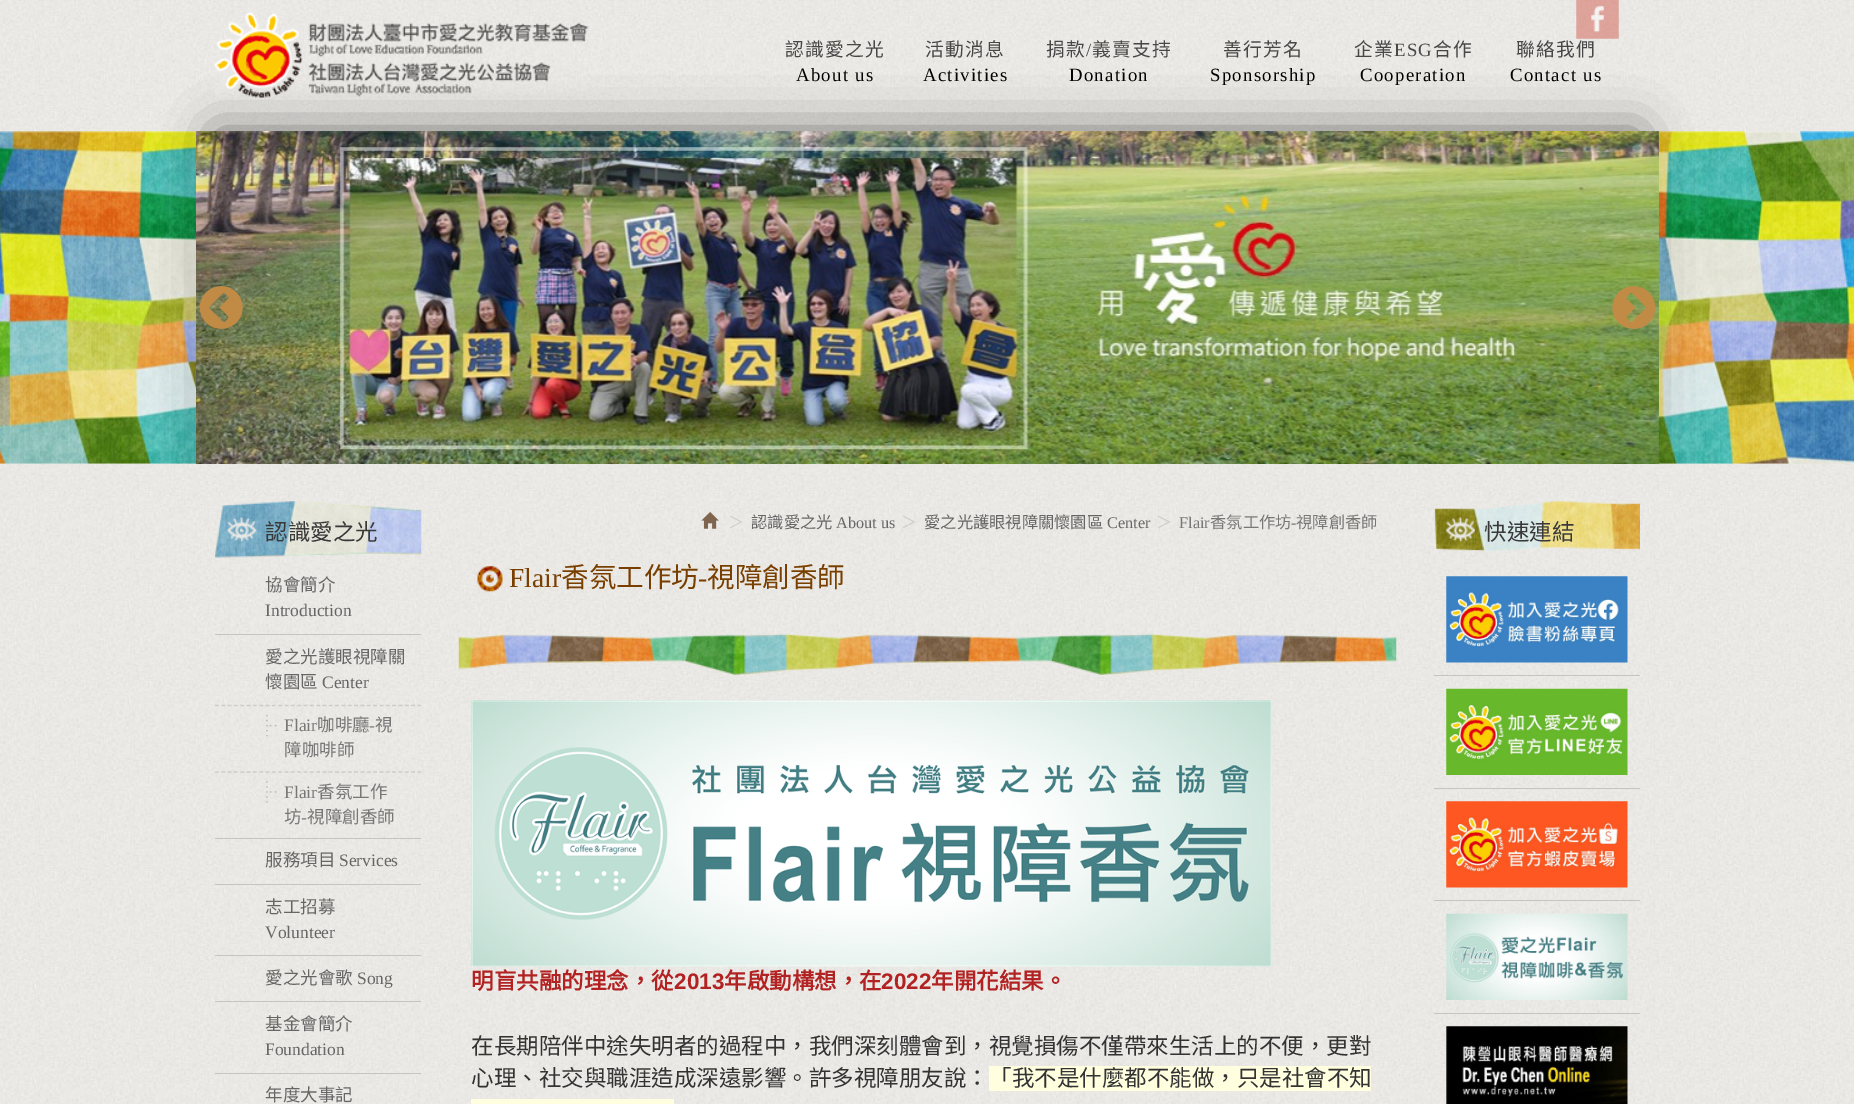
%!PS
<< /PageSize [1854 1104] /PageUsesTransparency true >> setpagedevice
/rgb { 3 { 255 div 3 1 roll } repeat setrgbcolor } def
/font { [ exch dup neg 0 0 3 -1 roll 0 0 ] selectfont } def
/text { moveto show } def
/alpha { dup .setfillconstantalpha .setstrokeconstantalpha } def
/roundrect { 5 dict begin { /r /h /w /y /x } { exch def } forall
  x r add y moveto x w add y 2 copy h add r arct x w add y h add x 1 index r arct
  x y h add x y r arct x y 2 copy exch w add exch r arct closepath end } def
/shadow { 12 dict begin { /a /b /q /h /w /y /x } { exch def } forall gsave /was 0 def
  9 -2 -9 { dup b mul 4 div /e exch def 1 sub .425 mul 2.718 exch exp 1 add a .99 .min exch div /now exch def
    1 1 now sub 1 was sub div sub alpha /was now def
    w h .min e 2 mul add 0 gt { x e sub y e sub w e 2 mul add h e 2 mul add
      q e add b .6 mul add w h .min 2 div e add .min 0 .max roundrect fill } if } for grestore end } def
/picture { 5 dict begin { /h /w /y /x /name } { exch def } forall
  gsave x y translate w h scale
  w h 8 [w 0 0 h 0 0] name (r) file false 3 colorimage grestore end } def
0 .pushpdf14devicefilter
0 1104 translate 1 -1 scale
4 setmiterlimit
255 255 255 rgb
0 0 1854 1104 rectfill
(img_01.rgb) 0 0 1854 1104 picture
(img_04.rgb) 0 131 1854 333 picture
gsave
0 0 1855 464 rectclip
0 0 0 rgb
215 131 1425 333 0 25 0.5 shadow
grestore
(img_02.rgb) 215 12 374 86 picture
(img_03.rgb) 1576 0 43 39 picture
(img_05.rgb) 1657 131 2 333 picture
(img_06.rgb) 196 131 1463 333 picture
(img_07.rgb) 199 286 44 43 picture
(img_08.rgb) 1612 286 44 43 picture
(img_09.rgb) 215 501 207 57 picture
(img_10.rgb) 227 517 30 25 picture
196 196 196 rgb
215 634 206 1 rectfill
(img_11.rgb) 266 715 11 22 picture
204 204 204 rgb
1.2 setlinewidth
[3.75 2.58] 0 setdash
215 705.5 moveto 206 0 rlineto stroke
(img_12.rgb) 266 781 11 22 picture
215 772 moveto 206 0 rlineto stroke
196 196 196 rgb
215 838 206 1 rectfill
215 884 206 1 rectfill
215 955 206 1 rectfill
215 1001 206 1 rectfill
215 1073 206 1 rectfill
(img_13.rgb) 701 512 18 17 picture
(img_14.rgb) 458 633 939 42 picture
(img_15.rgb) 477 566 26 26 picture
(img_16.rgb) 471 700 801 267 picture
255 255 224 rgb
471 1099 203 5 rectfill
989 1066 382 25 rectfill
(img_17.rgb) 1434 501 206 51 picture
(img_18.rgb) 1446 517 29 25 picture
(img_19.rgb) 1446 576 182 87 picture
196 196 196 rgb
1434 675 206 1 rectfill
(img_20.rgb) 1446 688 182 87 picture
1434 788 206 1 rectfill
(img_21.rgb) 1446 801 182 87 picture
1434 900 206 1 rectfill
(img_22.rgb) 1446 913 182 87 picture
1434 1013 206 1 rectfill
(img_23.rgb) 1446 1026 182 78 picture
/NotoSansCJKTC-Regular 18.75 font
71 71 71 rgb
785 56 moveto 1.25 0 (認識愛之光) ashow
/LiberationSerif-Regular 18.75 font
0 0 0 rgb
796 81 moveto 1.25 0 (About us) ashow
/NotoSansCJKTC-Regular 18.75 font
71 71 71 rgb
925 56 moveto 1.25 0 (活動消息) ashow
/LiberationSerif-Regular 18.75 font
0 0 0 rgb
923 81 moveto 1.25 0 (Activities) ashow
/NotoSansCJKTC-Regular 18.75 font
71 71 71 rgb
1046 56 moveto 1.25 0 (捐款) ashow
/LiberationSerif-Regular 18.75 font
1086 56 moveto 1.25 0 (/) ashow
/NotoSansCJKTC-Regular 18.75 font
1092 56 moveto 1.25 0 (義賣支持) ashow
/LiberationSerif-Regular 18.75 font
0 0 0 rgb
1069 81 moveto 1.25 0 (Donation) ashow
/NotoSansCJKTC-Regular 18.75 font
71 71 71 rgb
1223 56 moveto 1.25 0 (善行芳名) ashow
/LiberationSerif-Regular 18.75 font
0 0 0 rgb
1210 81 moveto 1.25 0 (Sponsorship) ashow
/NotoSansCJKTC-Regular 18.75 font
71 71 71 rgb
1354 56 moveto 1.25 0 (企業) ashow
/LiberationSerif-Regular 18.75 font
1394 56 moveto 1.25 0 (ESG) ashow
/NotoSansCJKTC-Regular 18.75 font
1433 56 moveto 1.25 0 (合作) ashow
/LiberationSerif-Regular 18.75 font
0 0 0 rgb
1360 81 moveto 1.25 0 (Cooperation) ashow
/NotoSansCJKTC-Regular 18.75 font
71 71 71 rgb
1516 56 moveto 1.25 0 (聯絡我們) ashow
/LiberationSerif-Regular 18.75 font
0 0 0 rgb
1510 81 moveto 1.25 0 (Contact us) ashow
/NotoSansCJKTC-Regular 22.5 font
57 57 57 rgb
(認識愛之光) 265 540 text
/NotoSansCJKTC-Regular 17.5 font
102 102 102 rgb
(協會簡介) 265 591 text
/LiberationSerif-Regular 17.5 font
(Introduction) 265 616 text
/NotoSansCJKTC-Regular 17.5 font
(愛之光護眼視障關) 265 663 text
(懷園區) 265 688 text
/LiberationSerif-Regular 17.5 font
(Center) 322 688 text
119 119 119 rgb
(Flair) 284 731 text
/NotoSansCJKTC-Regular 17.5 font
(咖啡廳) 317 731 text
/LiberationSerif-Regular 17.5 font
(-) 369 731 text
/NotoSansCJKTC-Regular 17.5 font
(視) 375 731 text
(障咖啡師) 284 756 text
/LiberationSerif-Regular 17.5 font
(Flair) 284 798 text
/NotoSansCJKTC-Regular 17.5 font
(香氛工作) 317 798 text
(坊) 284 823 text
/LiberationSerif-Regular 17.5 font
(-) 301 823 text
/NotoSansCJKTC-Regular 17.5 font
(視障創香師) 307 823 text
102 102 102 rgb
(服務項目) 265 866 text
/LiberationSerif-Regular 17.5 font
(Services) 339 866 text
/NotoSansCJKTC-Regular 17.5 font
(志工招募) 265 913 text
/LiberationSerif-Regular 17.5 font
(Volunteer) 265 938 text
/NotoSansCJKTC-Regular 17.5 font
(愛之光會歌) 265 984 text
/LiberationSerif-Regular 17.5 font
(Song) 357 984 text
/NotoSansCJKTC-Regular 17.5 font
(基金會簡介) 265 1030 text
/LiberationSerif-Regular 17.5 font
(Foundation) 265 1055 text
/NotoSansCJKTC-Regular 17.5 font
(年度大事記) 265 1101 text
/NotoSansCJKTC-Regular 16.25 font
204 204 204 rgb
(＞) 728 528 text
102 102 102 rgb
(認識愛之光) 751 528 text
/LiberationSerif-Regular 16.25 font
(About us) 836 528 text
/NotoSansCJKTC-Regular 16.25 font
204 204 204 rgb
(＞) 901 528 text
102 102 102 rgb
(愛之光護眼視障關懷園區) 924 528 text
/LiberationSerif-Regular 16.25 font
(Center) 1107 528 text
/NotoSansCJKTC-Regular 16.25 font
204 204 204 rgb
(＞) 1156 528 text
/LiberationSerif-Regular 16.25 font
119 119 119 rgb
(Flair) 1179 528 text
/NotoSansCJKTC-Regular 16.25 font
(香氛工作坊) 1210 528 text
/LiberationSerif-Regular 16.25 font
(-) 1291 528 text
/NotoSansCJKTC-Regular 16.25 font
(視障創香師) 1296 528 text
/LiberationSerif-Regular 27.5 font
121 63 0 rgb
(Flair) 509 587 text
/NotoSansCJKTC-Regular 27.5 font
(香氛工作坊) 561 587 text
/LiberationSerif-Regular 27.5 font
(-) 698 587 text
/NotoSansCJKTC-Regular 27.5 font
(視障創香師) 707 587 text
/NotoSansCJKTC-Bold 22.5 font
178 34 34 rgb
(明盲共融的理念，從) 471 989 text
/LiberationSans-Bold 22.5 font
(2013) 674 989 text
/NotoSansCJKTC-Bold 22.5 font
(年啟動構想，在) 724 989 text
/LiberationSans-Bold 22.5 font
(2022) 881 989 text
/NotoSansCJKTC-Bold 22.5 font
(年開花結果。) 931 989 text
/NotoSansCJKTC-Regular 22.5 font
51 51 51 rgb
(在長期陪伴中途失明者的過程中，我們深刻體會到，視覺損傷不僅帶來生活上的不便，更對) 471 1054 text
(心理、社交與職涯造成深遠影響。許多視障朋友說：) 471 1086 text
(「我不是什麼都不能做，只是社會不知) 989 1086 text
57 57 57 rgb
(快速連結) 1484 540 text
.poppdf14devicefilter showpage
